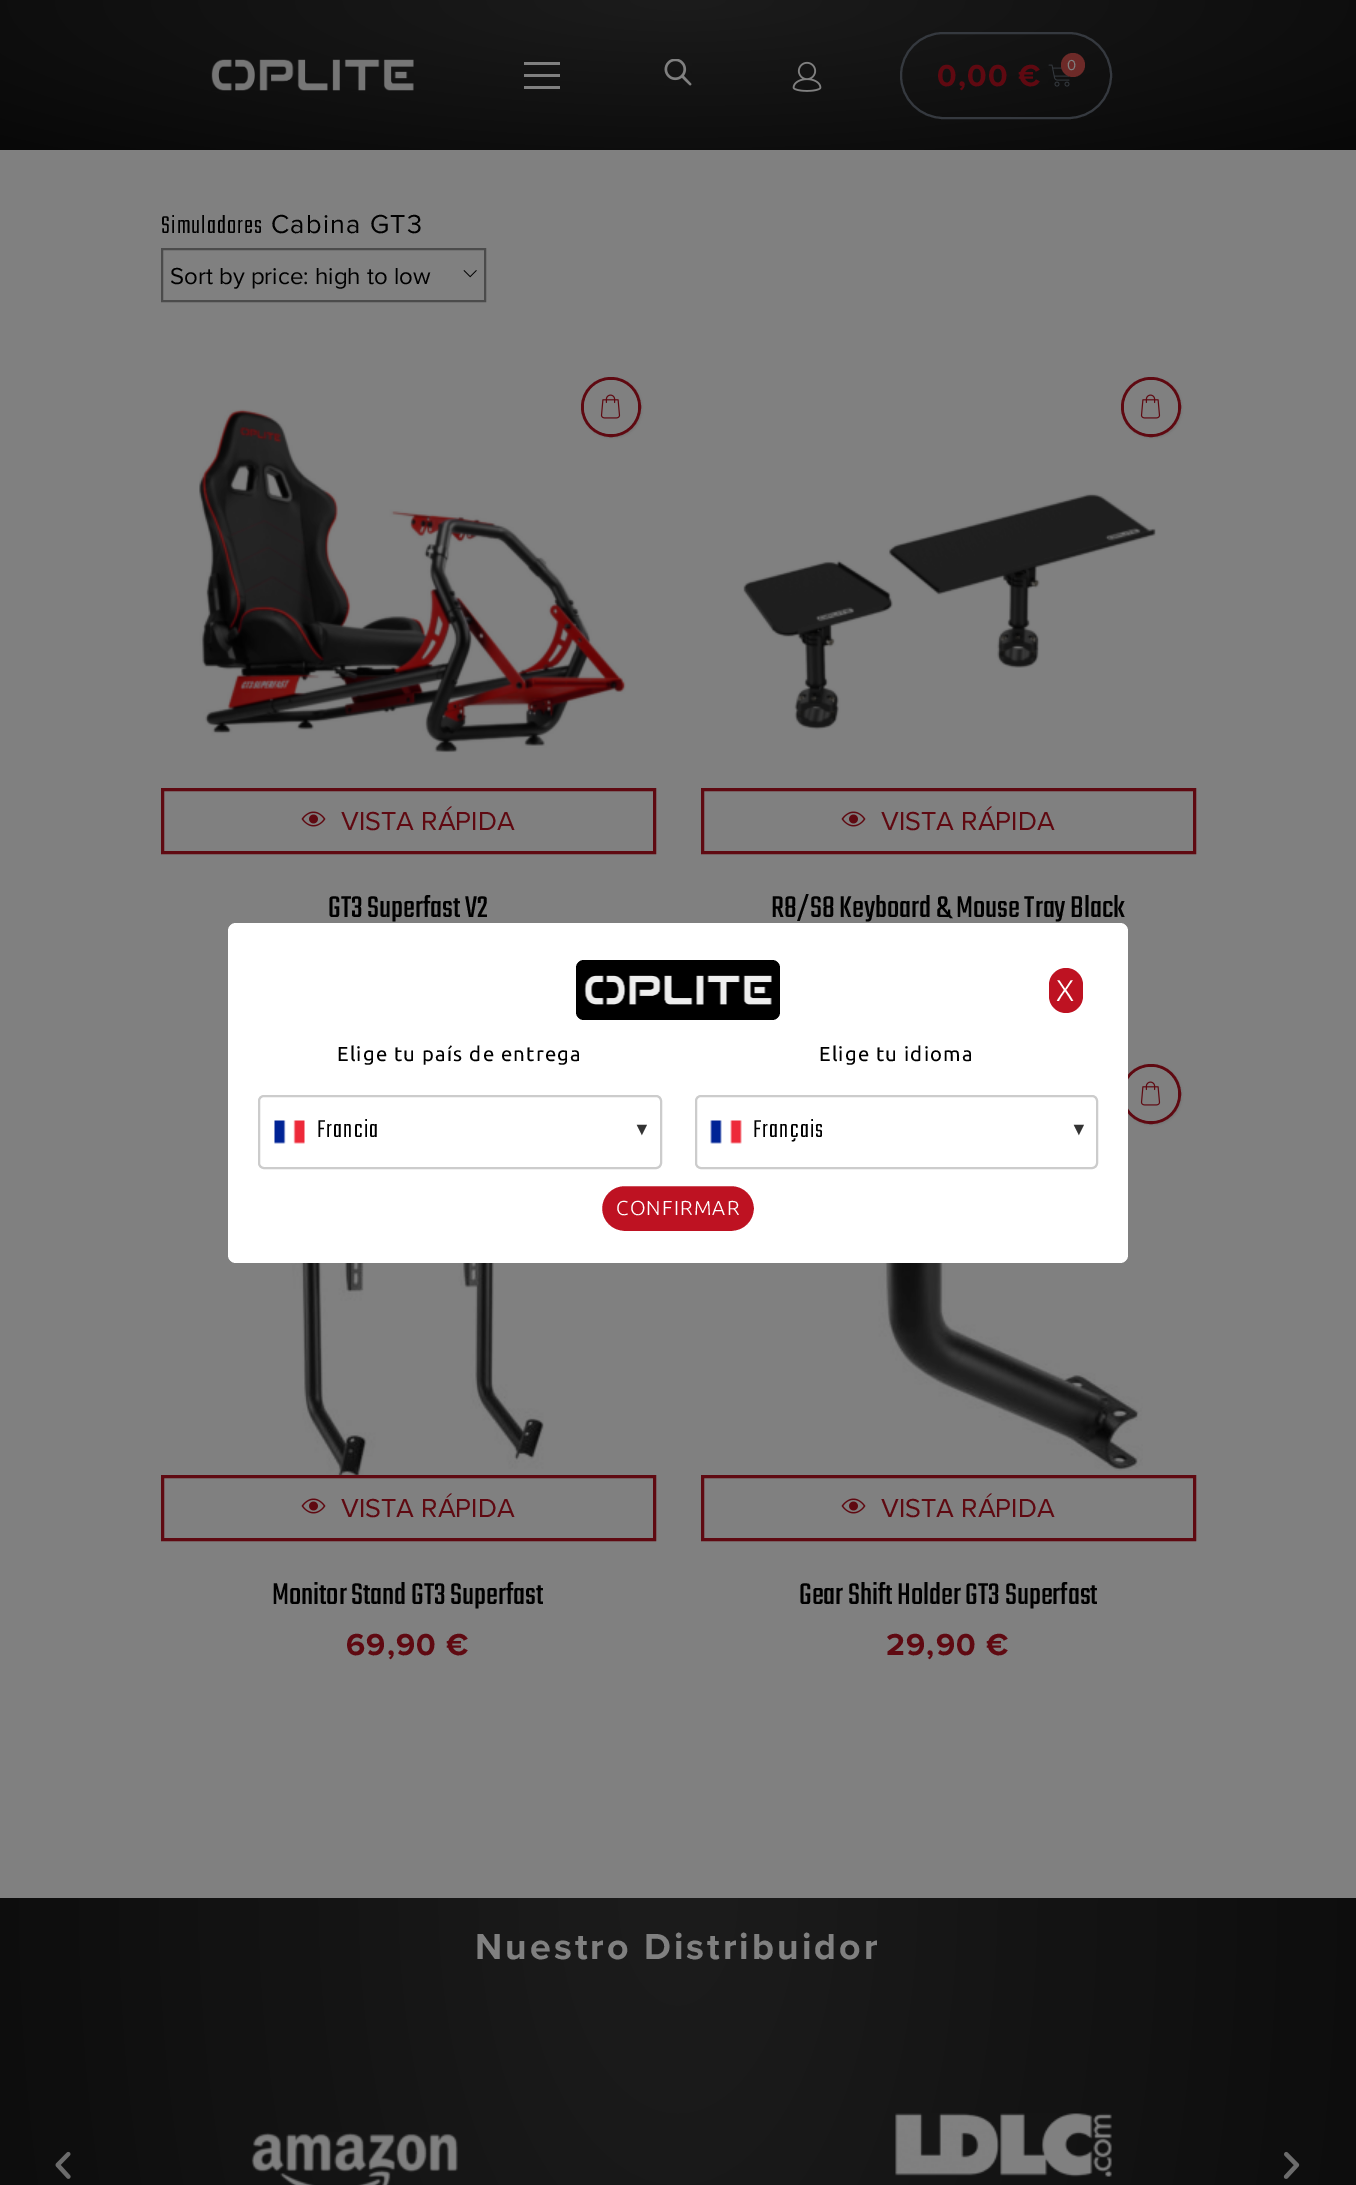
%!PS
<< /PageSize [1356 2185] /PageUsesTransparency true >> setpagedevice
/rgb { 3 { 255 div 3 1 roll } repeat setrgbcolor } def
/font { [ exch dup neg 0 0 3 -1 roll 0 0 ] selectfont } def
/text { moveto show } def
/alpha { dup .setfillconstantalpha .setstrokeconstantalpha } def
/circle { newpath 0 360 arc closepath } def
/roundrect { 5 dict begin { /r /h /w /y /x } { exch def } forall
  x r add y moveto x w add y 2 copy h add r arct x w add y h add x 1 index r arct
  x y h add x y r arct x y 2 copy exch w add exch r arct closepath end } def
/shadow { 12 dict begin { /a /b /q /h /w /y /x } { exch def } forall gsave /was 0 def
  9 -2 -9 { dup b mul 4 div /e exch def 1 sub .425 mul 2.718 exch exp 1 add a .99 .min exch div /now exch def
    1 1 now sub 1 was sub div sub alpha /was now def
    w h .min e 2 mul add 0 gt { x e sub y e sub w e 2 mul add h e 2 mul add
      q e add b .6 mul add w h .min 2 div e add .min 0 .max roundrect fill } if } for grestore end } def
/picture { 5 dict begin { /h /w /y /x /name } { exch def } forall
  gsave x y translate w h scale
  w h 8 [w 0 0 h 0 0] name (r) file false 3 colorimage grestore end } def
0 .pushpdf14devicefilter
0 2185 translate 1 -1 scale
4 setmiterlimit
128 128 128 rgb
0 0 1356 2185 rectfill
gsave 0 0 moveto 1356 0 rlineto 0 150 rlineto -1356 0 rlineto closepath clip newpath 678 0 translate 959 212 scale
<< /ShadingType 3 /ColorSpace /DeviceRGB /Coords [0 0 0 0 0 1] /Extend [true true] /Function << /FunctionType 2 /Domain [0 1] /C0 [0.11 0.11 0.11] /C1 [0.031 0.031 0.031] /N 1 >> >> shfill grestore
(img_01.rgb) 211 59 203 32 picture
524 74 36 3 rectfill
524 62 36 3 rectfill
524 86 36 3 rectfill
(img_02.rgb) 664 59 28 27 picture
(img_03.rgb) 792 61 30 31 picture
53 57 63 rgb
2 setlinewidth
901 33 210 85 42.5 roundrect stroke
(img_04.rgb) 1048 64 22 23 picture
109 42 40 rgb
1073 65 12 circle fill
(img_05.rgb) 463 270 14 8 picture
75 75 75 rgb
162 249 323 52 rectstroke
(img_07.rgb) 199 409 427 344 picture
0 0 0 rgb
582 378 60 60 30 1 0.1 shadow
95 9 17 rgb
3 setlinewidth
611 407 28.5 circle stroke
128 128 128 rgb
611 407 27 circle fill
(img_06.rgb) 600 394 21 25 picture
95 9 17 rgb
162.5 789.5 492 63 rectstroke
(img_08.rgb) 301 811 25 16 picture
0 0 0 rgb
1122 378 60 60 30 1 0.1 shadow
95 9 17 rgb
1151 407 28.5 circle stroke
128 128 128 rgb
1151 407 27 circle fill
(img_06.rgb) 1140 394 21 25 picture
(img_09.rgb) 743 493 413 237 picture
95 9 17 rgb
702.5 789.5 492 63 rectstroke
(img_08.rgb) 841 811 25 16 picture
(img_10.rgb) 291 1263 253 212 picture
162.5 1476.5 492 63 rectstroke
(img_08.rgb) 301 1498 25 16 picture
(img_11.rgb) 747 1074 396 397 picture
0 0 0 rgb
1122 1065 60 60 30 1 0.1 shadow
95 9 17 rgb
1151 1094 28.5 circle stroke
128 128 128 rgb
1151 1094 27 circle fill
(img_06.rgb) 1140 1081 21 25 picture
95 9 17 rgb
702.5 1476.5 492 63 rectstroke
(img_08.rgb) 841 1498 25 16 picture
255 255 255 rgb
228 923 900 340 8 roundrect fill
0 0 0 rgb
576 960 204 60 8 roundrect fill
(img_12.rgb) 584 975 188 30 picture
190 18 34 rgb
1049 968 34 45 17 roundrect fill
204 204 204 rgb
2 setlinewidth
259 1096 402 72 5 roundrect stroke
(img_13.rgb) 274 1120 31 24 picture
696 1096 401 72 5 roundrect stroke
(img_14.rgb) 710 1120 32 24 picture
190 18 34 rgb
601 1185 154 47 23.5 roundrect gsave fill grestore
255 255 255 rgb
stroke
gsave 0 1898 moveto 1356 0 rlineto 0 287 rlineto -1356 0 rlineto closepath clip newpath 678 1898 translate 959 1725 scale
<< /ShadingType 3 /ColorSpace /DeviceRGB /Coords [0 0 0 0 0 1] /Extend [true true] /Function << /FunctionType 2 /Domain [0 1] /C0 [0.11 0.11 0.11] /C1 [0.031 0.031 0.031] /N 1 >> >> shfill grestore
(img_15.rgb) 55 2151 16 28 picture
(img_16.rgb) 251 2132 207 53 picture
(img_17.rgb) 895 2113 217 64 picture
(img_18.rgb) 1283 2151 17 28 picture
/ProximaNova-Bold 31.5 font
95 9 17 rgb
937 86 moveto 1.2 0 (0,00 €) ashow
/ProximaNova-Regular 15 font
128 128 128 rgb
1067 70 moveto 1.2 0 (0) ashow
/Teko-Light 27 font
0 0 0 rgb
161 233 moveto 1.2 0 (Simuladores) ashow
/ProximaNova-Regular 27 font
271 233 moveto 1.2 0 (Cabina GT3) ashow
/ProximaNova-Regular 24 font
(Sort by price: high to low) 170 284 text
/ProximaNova-Regular 27 font
95 9 17 rgb
(VISTA RÁPIDA) 341 830 text
/Teko-Regular 33 font
0 0 0 rgb
(GT3 Superfast V2) 328 917 text
/ProximaNova-Regular 27 font
95 9 17 rgb
(VISTA RÁPIDA) 881 830 text
/Teko-Regular 33 font
0 0 0 rgb
(R8/S8 Keyboard & Mouse Tray Black) 771 917 text
/ProximaNova-Regular 27 font
95 9 17 rgb
(VISTA RÁPIDA) 341 1517 text
/Teko-Regular 33 font
0 0 0 rgb
(Monitor Stand GT3 Superfast) 272 1604 text
/ProximaNova-Bold 31.5 font
95 9 17 rgb
346 1655 moveto 1.2 0 (69,90 €) ashow
/ProximaNova-Regular 27 font
(VISTA RÁPIDA) 881 1517 text
/Teko-Regular 33 font
0 0 0 rgb
(Gear Shift Holder GT3 Superfast) 799 1604 text
/ProximaNova-Bold 31.5 font
95 9 17 rgb
886 1655 moveto 1.2 0 (29,90 €) ashow
/Ubuntu-Light 30 font
255 255 255 rgb
1056 1001 moveto 1.2 0 (X) ashow
/Ubuntu-Regular 20.25 font
0 0 0 rgb
337 1061 moveto 1.2 0 (Elige tu país de entrega) ashow
/Teko-Light 27 font
317 1137 moveto 1.2 0 (Francia) ashow
/LiberationSerif-Regular 18 font
51 51 51 rgb
633 1135 moveto 1.2 0 (▼) ashow
/Ubuntu-Regular 20.25 font
0 0 0 rgb
819 1061 moveto 1.2 0 (Elige tu idioma) ashow
/Teko-Light 27 font
753 1137 moveto 1.2 0 (Français) ashow
/LiberationSerif-Regular 18 font
51 51 51 rgb
1070 1135 moveto 1.2 0 (▼) ashow
/Ubuntu-Light 20.25 font
255 255 255 rgb
616 1215 moveto 1.2 0 (CONFIRMAR) ashow
/ProximaNova-Bold 37.5 font
128 128 128 rgb
475 1959 moveto 3 0 (Nuestro Distribuidor) ashow
.poppdf14devicefilter showpage
